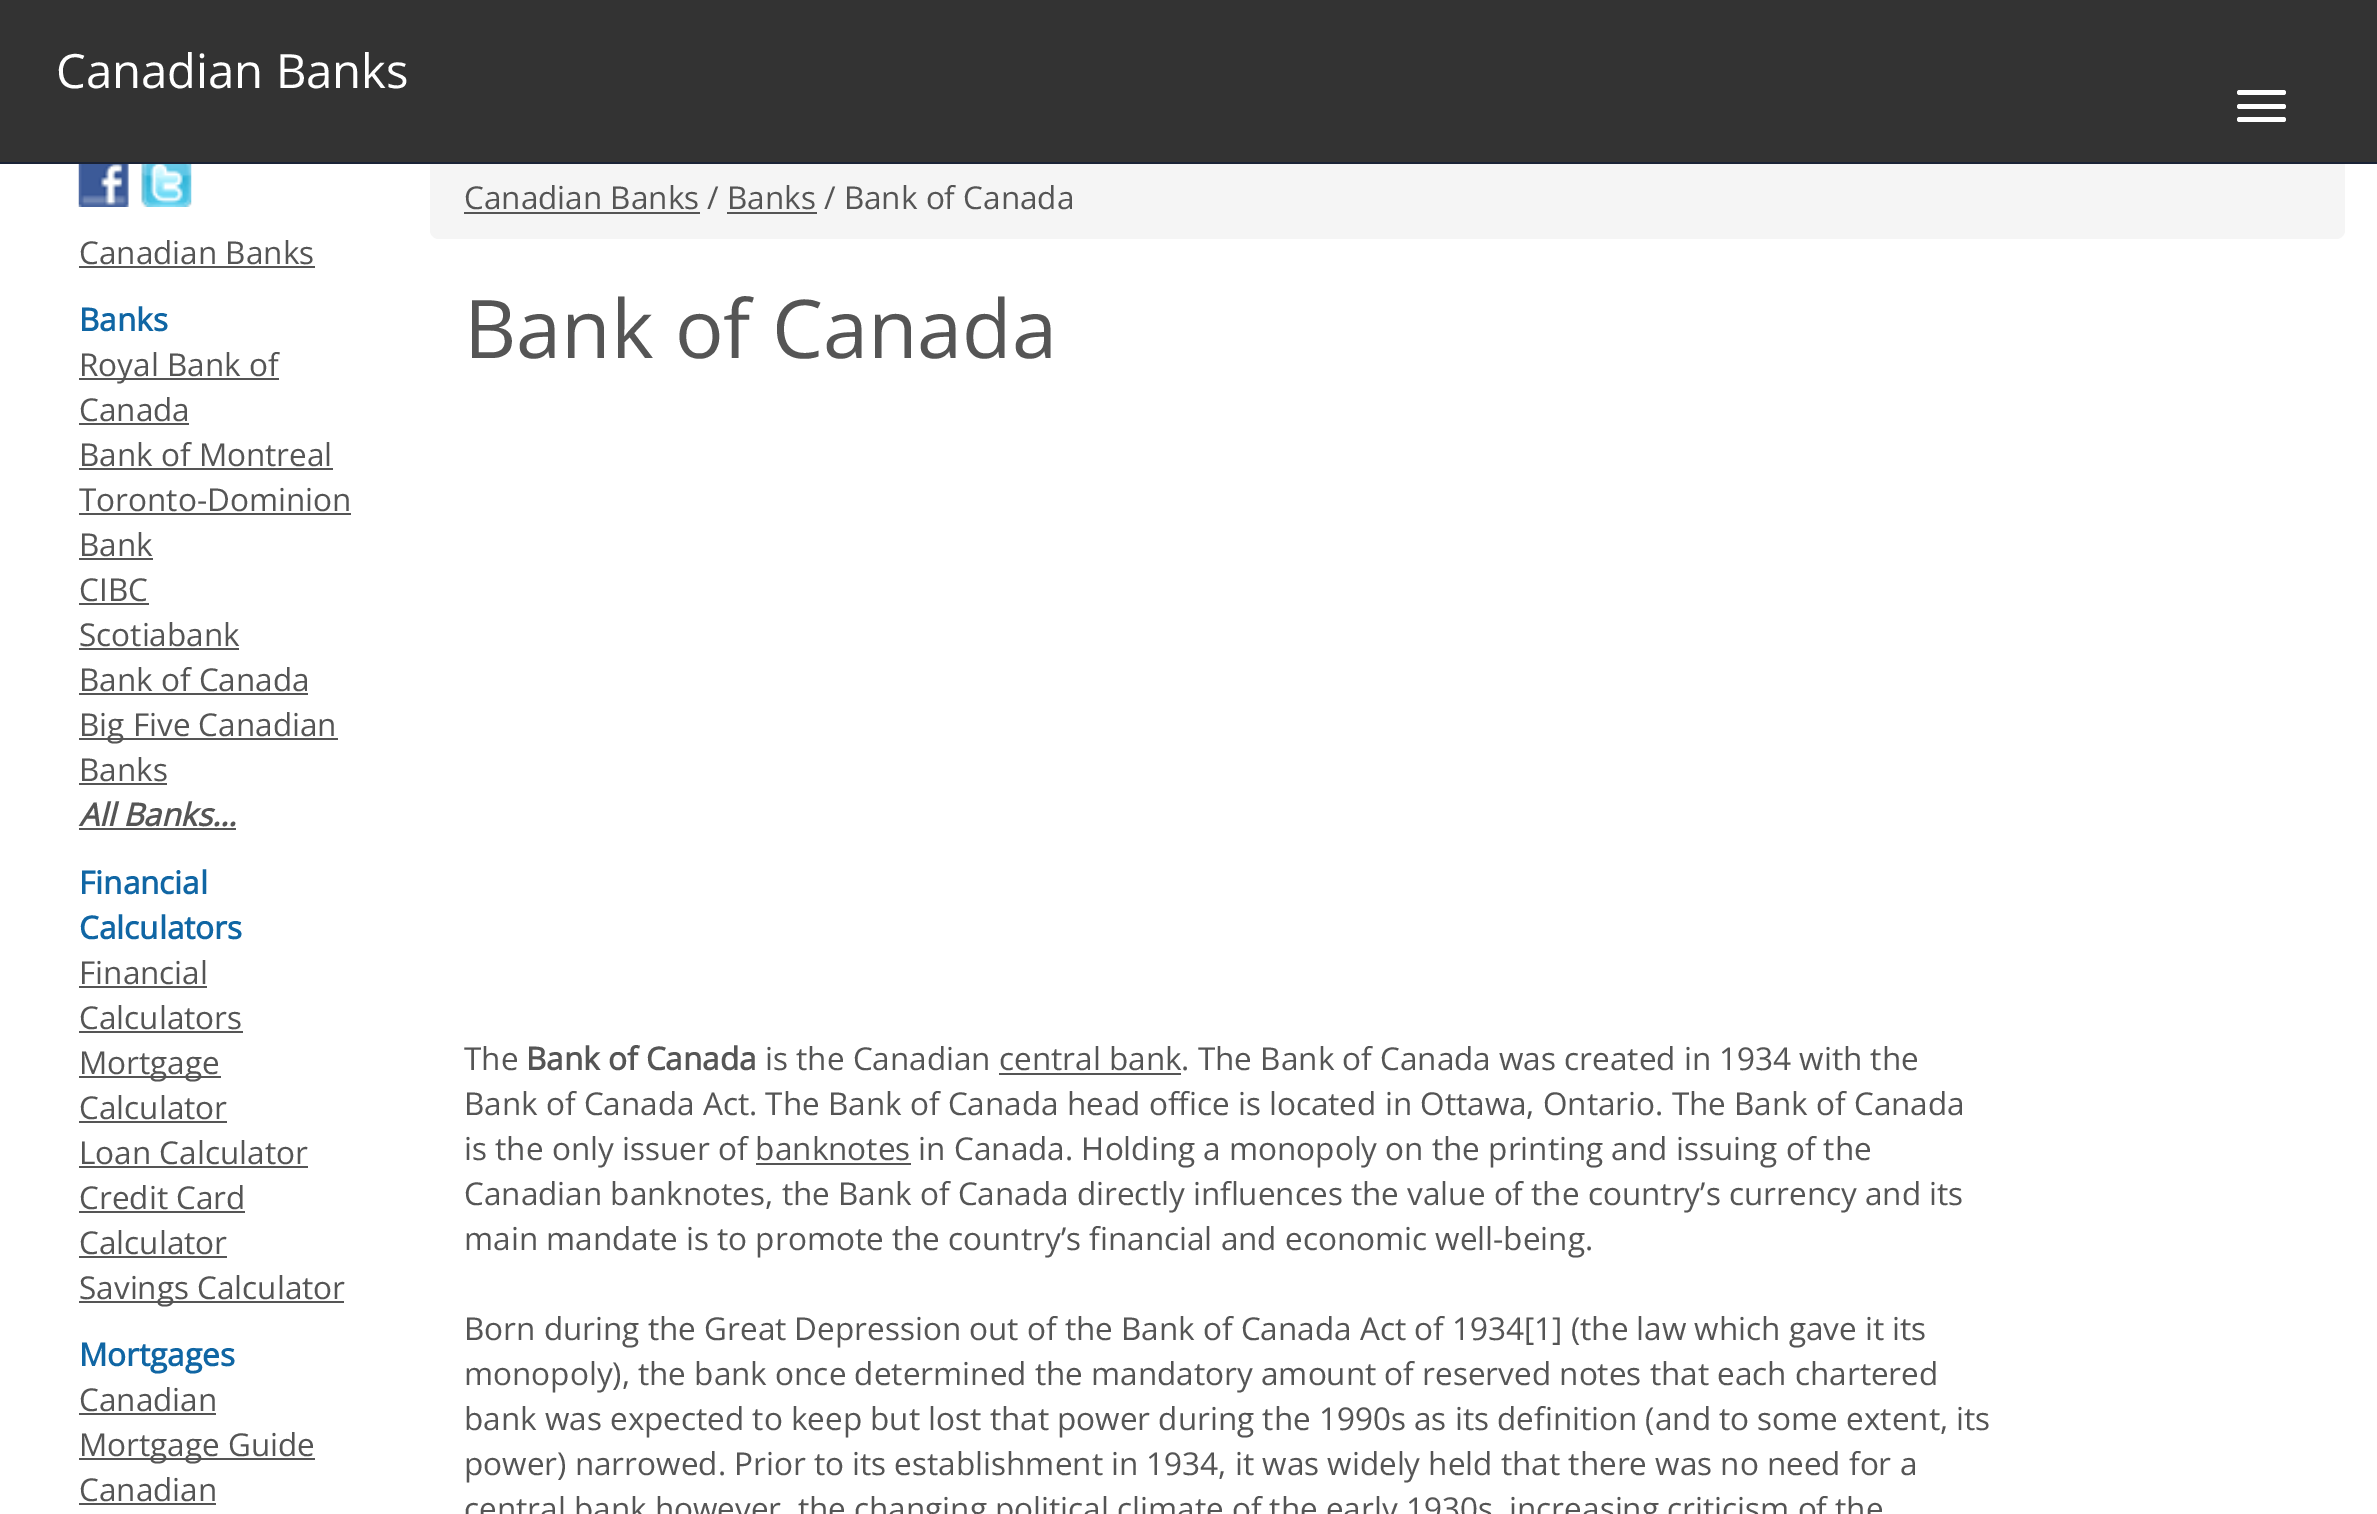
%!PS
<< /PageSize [2377 1514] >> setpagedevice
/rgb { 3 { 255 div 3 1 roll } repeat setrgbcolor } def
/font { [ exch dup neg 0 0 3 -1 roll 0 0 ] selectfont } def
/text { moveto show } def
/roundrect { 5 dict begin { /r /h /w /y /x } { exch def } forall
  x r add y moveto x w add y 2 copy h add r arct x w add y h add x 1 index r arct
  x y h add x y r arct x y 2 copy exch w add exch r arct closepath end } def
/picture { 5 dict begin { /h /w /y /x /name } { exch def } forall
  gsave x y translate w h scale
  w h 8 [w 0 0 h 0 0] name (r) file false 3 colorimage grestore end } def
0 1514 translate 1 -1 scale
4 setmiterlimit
255 255 255 rgb
0 0 2377 1514 rectfill
245 245 245 rgb
430 158 1915 81 9 roundrect fill
51 51 51 rgb
0 0 2377 162 rectfill
26 35 54 rgb
0 162 2377 2 rectfill
255 255 255 rgb
2237 90 49 5 2.5 roundrect fill
2237 104 49 5 2.5 roundrect fill
2237 117 49 5 2.5 roundrect fill
(img_01.rgb) 78 164 51 43 picture
(img_02.rgb) 141 164 51 43 picture
85 85 85 rgb
79 266 236 2 rectfill
79 378 200 2 rectfill
79 423 110 2 rectfill
79 468 254 2 rectfill
79 513 272 2 rectfill
79 558 74 2 rectfill
79 603 70 2 rectfill
79 648 160 2 rectfill
79 693 229 2 rectfill
79 738 259 2 rectfill
79 783 88 2 rectfill
79 828 157 2 rectfill
79 986 128 2 rectfill
79 1031 164 2 rectfill
79 1076 142 2 rectfill
79 1121 148 2 rectfill
79 1166 229 2 rectfill
79 1211 166 2 rectfill
79 1256 148 2 rectfill
79 1301 265 2 rectfill
79 1413 137 2 rectfill
79 1458 236 2 rectfill
79 1503 137 2 rectfill
464 212 236 2 rectfill
727 212 90 2 rectfill
999 1073 182 2 rectfill
756 1163 155 2 rectfill
/OpenSans-Regular 47.25 font
255 255 255 rgb
(Canadian Banks) 56 88 text
/OpenSans-Regular 31.5 font
85 85 85 rgb
(Canadian Banks) 79 264 text
/OpenSans-Bold 31.5 font
16 102 164 rgb
(Banks) 79 331 text
/OpenSans-Regular 31.5 font
85 85 85 rgb
(Royal Bank of) 79 376 text
(Canada) 79 421 text
(Bank of Montreal) 79 466 text
(Toronto-Dominion) 79 511 text
(Bank) 79 556 text
(CIBC) 79 601 text
(Scotiabank) 79 646 text
(Bank of Canada) 79 691 text
(Big Five Canadian) 79 736 text
(Banks) 79 781 text
/OpenSans-BoldItalic 31.5 font
(All Banks...) 79 826 text
/OpenSans-Bold 31.5 font
16 102 164 rgb
(Financial) 79 894 text
(Calculators) 79 939 text
/OpenSans-Regular 31.5 font
85 85 85 rgb
(Financial) 79 984 text
(Calculators) 79 1029 text
(Mortgage) 79 1074 text
(Calculator) 79 1119 text
(Loan Calculator) 79 1164 text
(Credit Card) 79 1209 text
(Calculator) 79 1254 text
(Savings Calculator) 79 1299 text
/OpenSans-Bold 31.5 font
16 102 164 rgb
(Mortgages) 79 1366 text
/OpenSans-Regular 31.5 font
85 85 85 rgb
(Canadian) 79 1411 text
(Mortgage Guide) 79 1456 text
(Canadian) 79 1501 text
(Canadian Banks / Banks / Bank of Canada) 464 209 text
/OpenSans-Regular 81 font
(Bank of Canada) 464 358 text
/OpenSans-Regular 31.5 font
(The) 464 1070 text
/OpenSans-Bold 31.5 font
(Bank of Canada) 526 1070 text
/OpenSans-Regular 31.5 font
(is the Canadian central bank. The Bank of Canada was created in 1934 with the) 765 1070 text
(Bank of Canada Act. The Bank of Canada head office is located in Ottawa, Ontario. The Bank of Canada) 464 1115 text
(is the only issuer of banknotes in Canada. Holding a monopoly on the printing and issuing of the) 464 1160 text
(Canadian banknotes, the Bank of Canada directly influences the value of the country’s currency and its) 464 1205 text
(main mandate is to promote the country’s financial and economic well-being.) 464 1250 text
(Born during the Great Depression out of the Bank of Canada Act of 1934[1] \(the law which gave it its) 464 1340 text
(monopoly\), the bank once determined the mandatory amount of reserved notes that each chartered) 464 1385 text
(bank was expected to keep but lost that power during the 1990s as its definition \(and to some extent, its) 464 1430 text
(power\) narrowed. Prior to its establishment in 1934, it was widely held that there was no need for a) 464 1475 text
(central bank however, the changing political climate of the early 1930s, increasing criticism of the) 464 1520 text
showpage
